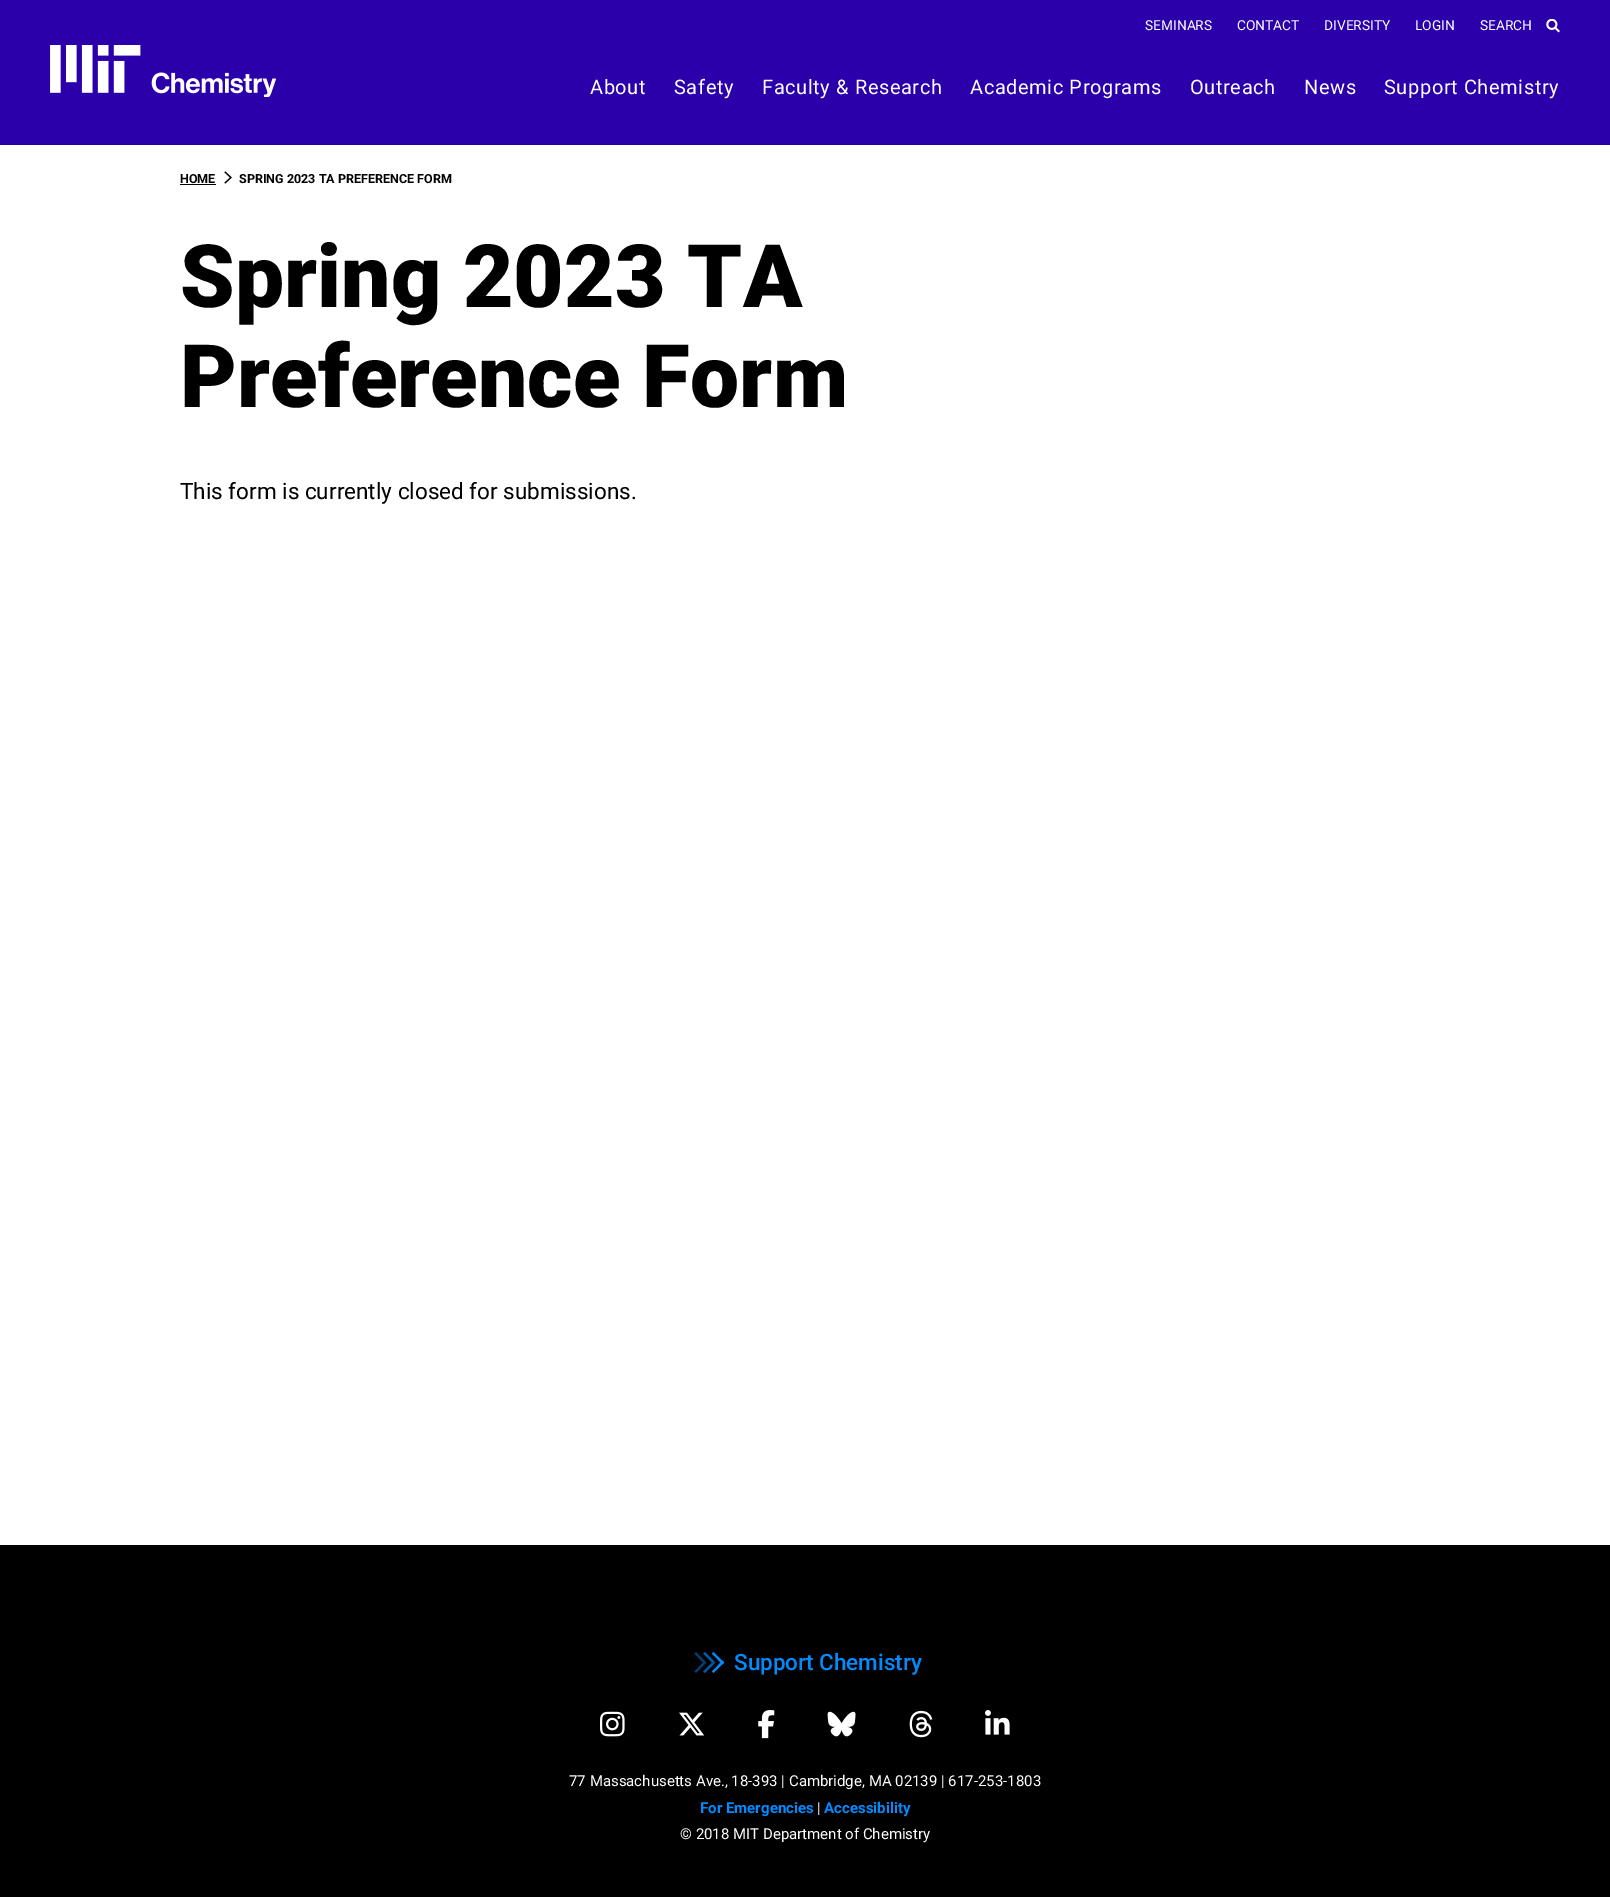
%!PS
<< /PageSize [1610 1897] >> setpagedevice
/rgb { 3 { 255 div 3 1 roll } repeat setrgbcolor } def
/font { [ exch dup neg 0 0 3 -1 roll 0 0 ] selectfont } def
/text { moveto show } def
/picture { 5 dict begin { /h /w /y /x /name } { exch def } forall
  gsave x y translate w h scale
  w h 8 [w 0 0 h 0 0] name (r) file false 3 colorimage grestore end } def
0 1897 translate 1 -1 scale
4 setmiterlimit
0 0 0 rgb
0 0 1610 1897 rectfill
43 0 170 rgb
0 0 1610 145 rectfill
(img_01.rgb) 1546 19 14 14 picture
(img_02.rgb) 50 45 226 52 picture
255 255 255 rgb
0 145 1610 1400 rectfill
0 0 0 rgb
180 184 36 1 rectfill
(img_03.rgb) 224 171 8 13 picture
0 63 115 rgb
696 1652 moveto 10.5 10.5 rlineto -3.5 0 rlineto -8.5 -9 rlineto closepath fill
706.5 1662.5 moveto -10.5 10.5 rlineto -1.5 -1.5 rlineto 8.5 -9 rlineto closepath fill
0 90 166 rgb
705 1652 moveto 10.5 10.5 rlineto -3.5 0 rlineto -9 -9 rlineto closepath fill
715.5 1662.5 moveto -10.5 10.5 rlineto -2 -1.5 rlineto 9 -9 rlineto closepath fill
0 139 255 rgb
712 1653.5 moveto 1.5 -1.5 rlineto 10.5 10.5 rlineto -1.5 2 rlineto closepath fill
712 1671.5 moveto 10.5 -11 rlineto 1.5 2 rlineto -10.5 10.5 rlineto closepath fill
(img_04.rgb) 600 1711 25 26 picture
(img_05.rgb) 679 1712 26 24 picture
(img_06.rgb) 758 1710 17 29 picture
(img_07.rgb) 827 1711 29 26 picture
(img_08.rgb) 909 1710 24 28 picture
(img_09.rgb) 985 1710 25 25 picture
/Roboto-Regular 13.75 font
255 255 255 rgb
(SEMINARS) 1145 30 text
(CONTACT) 1237 30 text
(DIVERSITY) 1324 30 text
(LOGIN) 1415 30 text
(SEARCH) 1480 30 text
/Roboto-Regular 20 font
590 94 moveto 0.6 0 (About) ashow
674 94 moveto 0.6 0 (Safety) ashow
762 94 moveto 0.6 0 (Faculty & Research) ashow
970 94 moveto 0.6 0 (Academic Programs) ashow
1190 94 moveto 0.6 0 (Outreach) ashow
1304 94 moveto 0.6 0 (News) ashow
1384 94 moveto 0.6 0 (Support Chemistry) ashow
/Roboto-Bold 12.5 font
0 0 0 rgb
(HOME) 180 183 text
(SPRING 2023 TA PREFERENCE FORM) 239 183 text
/Roboto-Black 87.5 font
(Spring 2023 TA) 180 307 text
(Preference Form) 180 407 text
/Roboto-Regular 22.5 font
(This form is currently closed for submissions.) 180 499 text
/Roboto-Medium 22.5 font
0 139 255 rgb
(Support Chemistry) 734 1670 text
/Roboto-Regular 15 font
255 255 255 rgb
(77 Massachusetts Ave., 18-393 | Cambridge, MA 02139 | 617-253-1803) 569 1786 text
/Roboto-Bold 15 font
0 139 255 rgb
(For Emergencies) 700 1813 text
/Roboto-Regular 15 font
255 255 255 rgb
(|) 817 1813 text
/Roboto-Bold 15 font
0 139 255 rgb
(Accessibility) 824 1813 text
/Roboto-Regular 15 font
255 255 255 rgb
(© 2018 MIT Department of Chemistry) 680 1839 text
showpage
